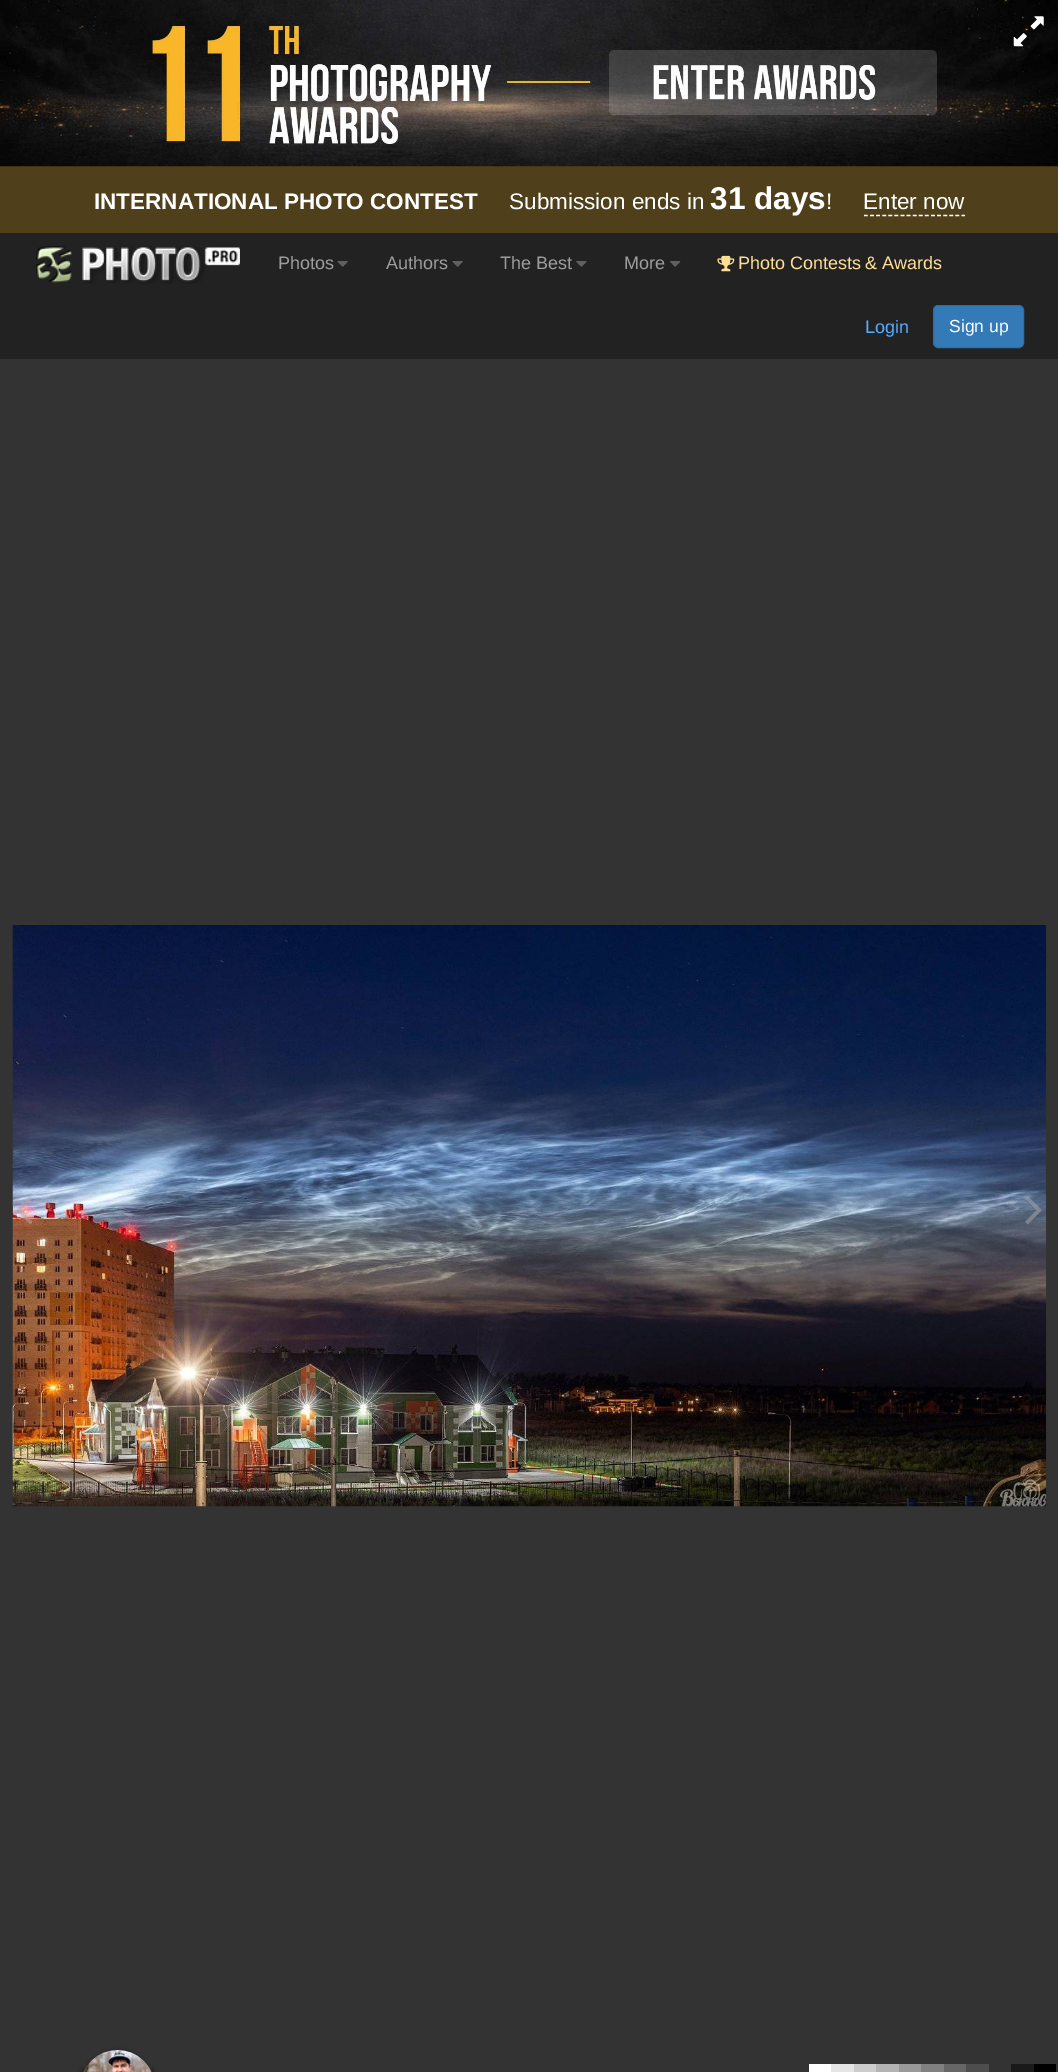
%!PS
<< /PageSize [1058 2072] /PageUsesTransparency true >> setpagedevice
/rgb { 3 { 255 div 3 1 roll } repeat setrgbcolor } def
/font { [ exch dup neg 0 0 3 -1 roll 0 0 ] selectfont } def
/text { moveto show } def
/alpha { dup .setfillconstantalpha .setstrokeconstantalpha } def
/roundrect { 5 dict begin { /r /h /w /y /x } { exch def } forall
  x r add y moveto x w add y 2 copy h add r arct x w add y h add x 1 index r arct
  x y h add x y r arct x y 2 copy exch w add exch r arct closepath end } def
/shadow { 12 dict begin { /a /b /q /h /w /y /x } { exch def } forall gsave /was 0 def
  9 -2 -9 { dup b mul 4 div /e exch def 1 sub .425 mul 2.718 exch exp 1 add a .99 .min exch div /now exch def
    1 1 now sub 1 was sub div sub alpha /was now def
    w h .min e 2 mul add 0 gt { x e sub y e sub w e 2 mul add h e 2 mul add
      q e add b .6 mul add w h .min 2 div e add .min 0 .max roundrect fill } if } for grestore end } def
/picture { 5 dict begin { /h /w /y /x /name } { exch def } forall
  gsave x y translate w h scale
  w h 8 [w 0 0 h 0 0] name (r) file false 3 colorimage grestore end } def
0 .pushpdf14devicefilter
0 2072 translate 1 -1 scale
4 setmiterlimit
79 64 27 rgb
0 0 1058 2072 rectfill
(img_01.rgb) 0 0 1058 167 picture
(img_02.rgb) 1013 16 31 31 picture
255 255 255 rgb
1.2 setlinewidth
[3.75 2.35] 0 setdash
864 215.5 moveto 101 0 rlineto stroke
34 34 34 rgb
0 233 1058 125 rectfill
35 35 35 rgb
0 358 1058 1 rectfill
(img_03.rgb) 36 246 204 38 picture
(img_04.rgb) 337 261 11 6 picture
(img_04.rgb) 452 261 11 6 picture
(img_05.rgb) 576 261 11 6 picture
(img_06.rgb) 670 261 11 6 picture
(img_07.rgb) 717 255 18 17 picture
51 122 183 rgb
933.5 305.5 90 42 4.5 roundrect gsave fill grestore
46 109 164 rgb
1 setlinewidth
[] 0 setdash
stroke
51 51 51 rgb
0 359 1058 1713 rectfill
(img_08.rgb) 12 925 1035 582 picture
(img_09.rgb) 16 1196 17 28 picture
(img_10.rgb) 1025 1196 17 28 picture
0 0 0 rgb
80 2051 75 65 37.5 2 0.5 shadow
(img_11.rgb) 83 2050 69 22 picture
255 255 255 rgb
809 2064 22 8 rectfill
229 229 229 rgb
831 2064 23 8 rectfill
204 204 204 rgb
854 2064 22 8 rectfill
179 179 179 rgb
876 2064 23 8 rectfill
153 153 153 rgb
899 2064 22 8 rectfill
128 128 128 rgb
921 2064 23 8 rectfill
102 102 102 rgb
944 2064 22 8 rectfill
77 77 77 rgb
966 2064 23 8 rectfill
26 26 26 rgb
1011 2064 23 8 rectfill
0 0 0 rgb
1034 2064 22 8 rectfill
/LiberationSans-Bold 22.5 font
255 255 255 rgb
(INTERNATIONAL PHOTO CONTEST) 94 209 text
/LiberationSans-Regular 22.5 font
(Submission ends in) 509 209 text
/LiberationSans-Bold 31.5 font
(31 days) 710 209 text
/LiberationSans-Regular 22.5 font
(!) 826 209 text
(Enter now) 863 209 text
/LiberationSans-Regular 18 font
157 157 157 rgb
(Photos) 278 269 text
(Authors) 386 269 text
500 269 moveto -0.5 0 32 (The Best) widthshow
(More) 624 269 text
255 223 148 rgb
738 269 moveto -0.5 0 32 (Photo Contests & Awards) widthshow
88 172 255 rgb
(Login) 865 333 text
/LiberationSans-Regular 17.5 font
255 255 255 rgb
(Sign up) 949 332 text
.poppdf14devicefilter showpage
